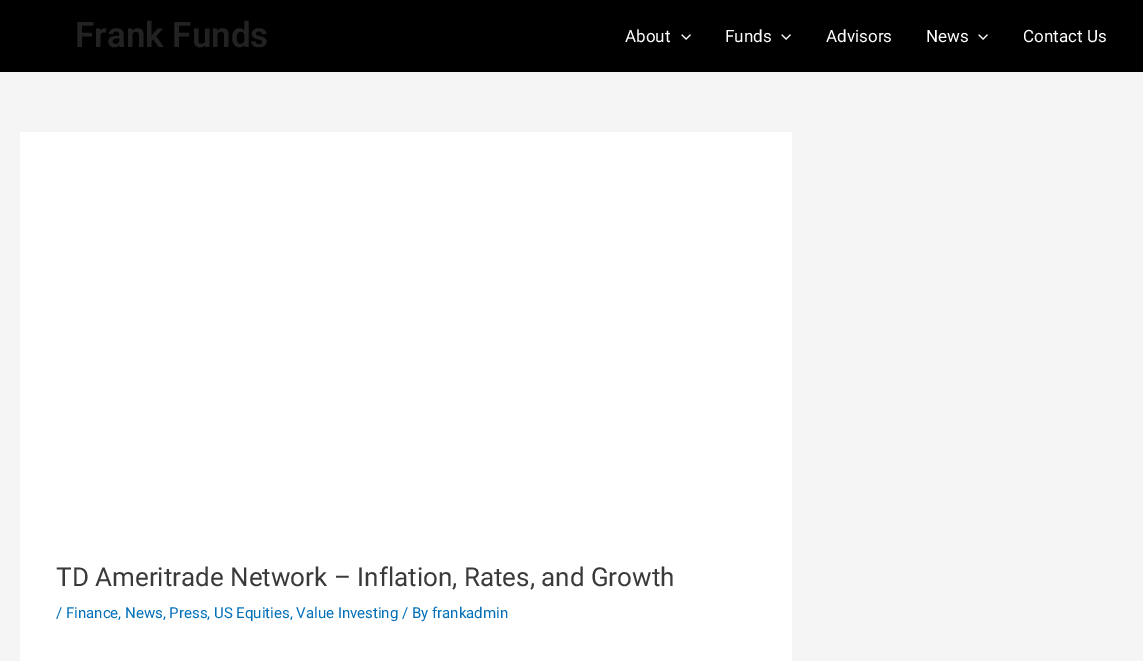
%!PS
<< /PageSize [1143 661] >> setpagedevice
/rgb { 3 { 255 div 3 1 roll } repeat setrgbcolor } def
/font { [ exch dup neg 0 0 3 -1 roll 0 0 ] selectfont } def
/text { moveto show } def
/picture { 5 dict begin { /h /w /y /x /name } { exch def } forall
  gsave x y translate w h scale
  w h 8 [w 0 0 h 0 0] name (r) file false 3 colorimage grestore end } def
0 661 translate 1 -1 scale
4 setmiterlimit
245 245 245 rgb
0 0 1143 661 rectfill
0 0 0 rgb
0 0 1143 72 rectfill
(img_01.rgb) 681 34 10 6 picture
(img_01.rgb) 781 34 10 6 picture
(img_01.rgb) 978 34 10 6 picture
255 255 255 rgb
20 132 772 529 rectfill
/Roboto-SemiBold 35 font
34 34 34 rgb
(Frank Funds) 75 47 text
/Roboto-Regular 17 font
255 255 255 rgb
(About) 625 42 text
(Funds) 725 42 text
(Advisors) 826 42 text
(News) 926 42 text
(Contact Us) 1023 42 text
/Roboto-Regular 26 font
58 58 58 rgb
(TD Ameritrade Network – Inflation, Rates, and Growth) 56 586 text
/Roboto-Regular 15 font
1 112 185 rgb
(/ Finance, News, Press, US Equities, Value Investing / By frankadmin) 56 618 text
showpage
